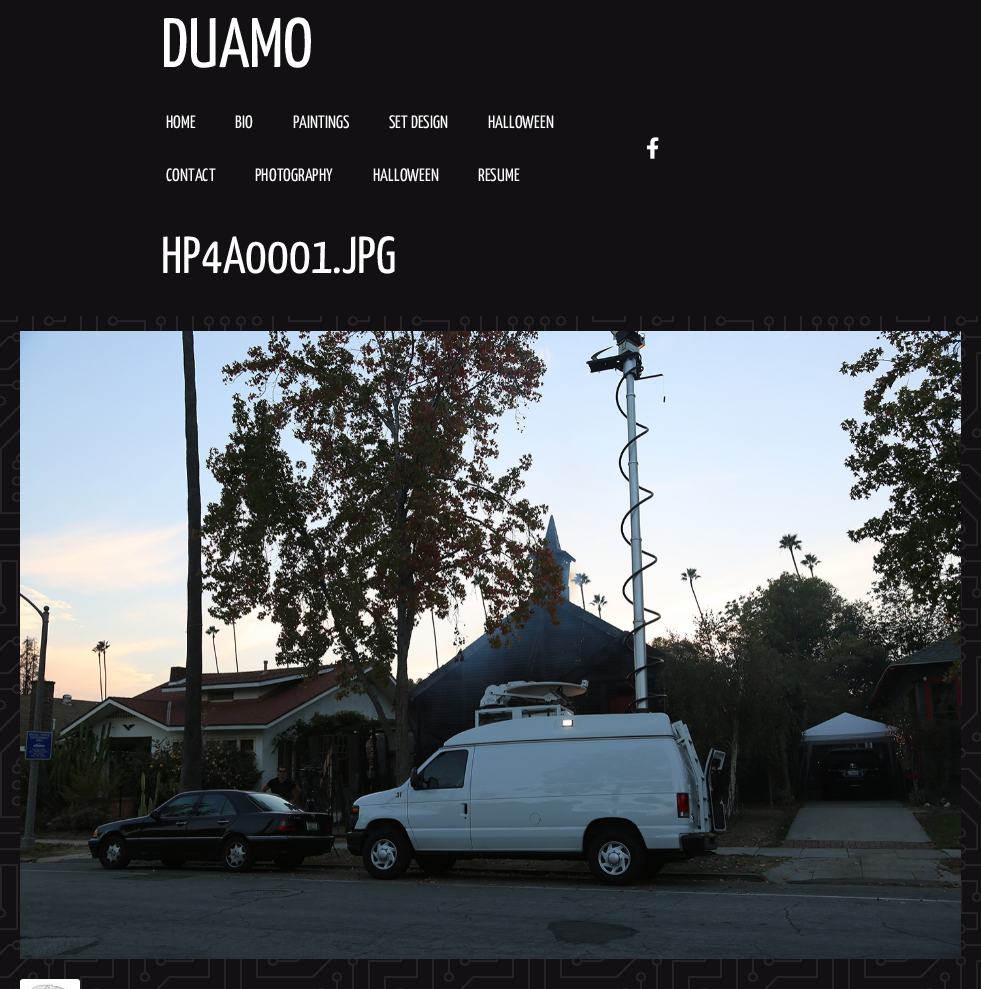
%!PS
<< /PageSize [981 989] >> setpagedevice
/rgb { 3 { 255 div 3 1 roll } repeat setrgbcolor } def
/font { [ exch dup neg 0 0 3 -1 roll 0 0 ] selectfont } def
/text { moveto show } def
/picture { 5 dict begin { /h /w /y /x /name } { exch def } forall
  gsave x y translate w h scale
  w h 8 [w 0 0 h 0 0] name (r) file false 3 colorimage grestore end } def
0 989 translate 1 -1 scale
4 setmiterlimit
18 16 18 rgb
0 0 981 989 rectfill
(img_01.rgb) 0 316 981 673 picture
(img_02.rgb) 646 137 13 22 picture
(img_03.rgb) 20 331 941 628 picture
(img_04.rgb) 20 979 60 10 picture
/YanoneKaffeesatz-Regular 70 font
255 255 255 rgb
(DUAMO) 161 67 text
/YanoneKaffeesatz-Regular 18 font
(HOME) 166 128 text
(BIO) 235 128 text
(PAINTINGS) 293 128 text
(SET DESIGN) 389 128 text
(HALLOWEEN) 488 128 text
(CONTACT) 166 181 text
(PHOTOGRAPHY) 255 181 text
(HALLOWEEN) 373 181 text
(RESUME) 478 181 text
/YanoneKaffeesatz-Regular 52 font
(HP4A0001.JPG) 161 273 text
showpage
